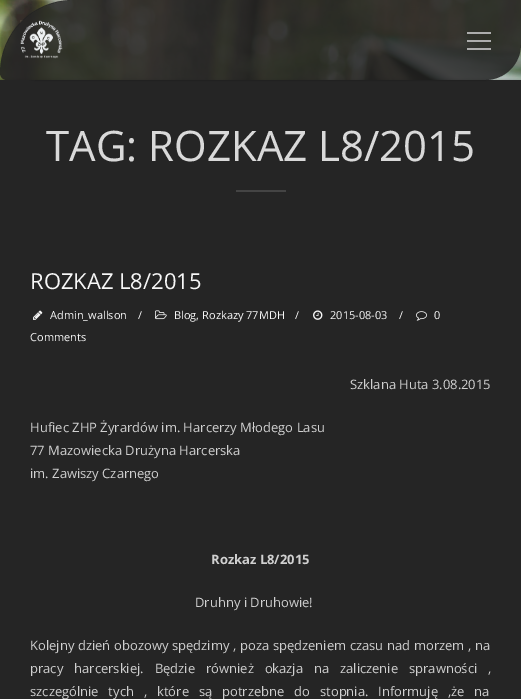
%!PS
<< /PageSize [521 699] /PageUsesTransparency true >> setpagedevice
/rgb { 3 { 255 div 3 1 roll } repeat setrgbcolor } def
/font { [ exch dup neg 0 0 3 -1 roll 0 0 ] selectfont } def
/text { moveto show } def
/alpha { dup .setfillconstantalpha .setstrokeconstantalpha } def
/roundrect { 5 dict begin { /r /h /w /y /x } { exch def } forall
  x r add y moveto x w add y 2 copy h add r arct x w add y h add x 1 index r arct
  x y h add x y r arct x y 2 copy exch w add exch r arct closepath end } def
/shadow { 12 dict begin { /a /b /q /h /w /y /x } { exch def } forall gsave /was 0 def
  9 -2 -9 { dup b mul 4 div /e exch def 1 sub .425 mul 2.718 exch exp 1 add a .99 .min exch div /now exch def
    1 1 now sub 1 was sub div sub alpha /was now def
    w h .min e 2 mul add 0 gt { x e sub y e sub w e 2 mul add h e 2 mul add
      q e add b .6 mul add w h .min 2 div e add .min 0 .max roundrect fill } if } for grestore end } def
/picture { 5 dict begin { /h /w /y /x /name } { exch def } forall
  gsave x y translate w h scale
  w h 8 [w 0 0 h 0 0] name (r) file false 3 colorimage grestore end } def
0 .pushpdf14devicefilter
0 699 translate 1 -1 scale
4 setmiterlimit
255 255 255 rgb
0 0 521 699 rectfill
(img_01.rgb) 0 0 521 80 picture
0 0 0 rgb
0 80 521 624 0 1.5 0.3 shadow
37 37 37 rgb
0 80 521 619 rectfill
gsave
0 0 moveto 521 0 rlineto 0 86 rlineto -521 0 rlineto closepath 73 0 moveto 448 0 rlineto 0 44 rlineto 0 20 -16 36 -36 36 rcurveto -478 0 rlineto -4 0 -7 -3 -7 -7 rcurveto 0 -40.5 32.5 -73 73 -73 rcurveto closepath eoclip newpath
0 0 0 rgb
0 0 521 80 73 1.5 0.3 shadow
grestore
0.85 alpha
34 34 34 rgb
73 0 moveto 448 0 rlineto 0 44 rlineto 0 20 -16 36 -36 36 rcurveto -478 0 rlineto -4 0 -7 -3 -7 -7 rcurveto 0 -40.5 32.5 -73 73 -73 rcurveto closepath fill
1 alpha
(img_02.rgb) 20 20 43 39 picture
173 173 173 rgb
467 40 24 2 rectfill
467 32 24 2 rectfill
467 48 24 2 rectfill
68 68 68 rgb
236 190 50 2 rectfill
(img_03.rgb) 33 310 10 10 picture
(img_04.rgb) 155 310 12 10 picture
(img_05.rgb) 416 311 11 10 picture
(img_06.rgb) 313 310 10 10 picture
/OpenSans-Regular 42 font
217 217 217 rgb
(TAG: ROZKAZ L8/2015) 46 161 text
/OpenSans-Regular 22 font
247 247 247 rgb
(ROZKAZ L8/2015) 30 289 text
/OpenSans-Regular 11 font
(Admin_wallson) 50 319 text
(Blog, Rozkazy 77MDH) 174 319 text
(0) 434 319 text
(Comments) 30 341 text
(/) 138 319 text
(/) 295 319 text
(2015-08-03) 330 319 text
(/) 399 319 text
/OpenSans-Regular 13 font
208 208 208 rgb
(Szklana Huta 3.08.2015) 350 389 text
(Hufiec ZHP Żyrardów im. Harcerzy Młodego Lasu) 30 432 text
(77 Mazowiecka Drużyna Harcerska) 30 455 text
(im. Zawiszy Czarnego) 30 478 text
/OpenSans-Bold 13 font
(Rozkaz L8/2015) 211 564 text
/OpenSans-Regular 13 font
(Druhny i Druhowie!) 195 607 text
30 650 moveto 0.3 0 32 (Kolejny dzień obozowy spędzimy , poza spędzeniem czasu nad morzem , na) widthshow
30 673 moveto 7.5 0 32 (pracy harcerskiej. Będzie również okazja na zaliczenie sprawności ,) widthshow
30 696 moveto 6.5 0 32 (szczególnie tych , które są potrzebne do stopnia. Informuję ,że na) widthshow
.poppdf14devicefilter showpage
